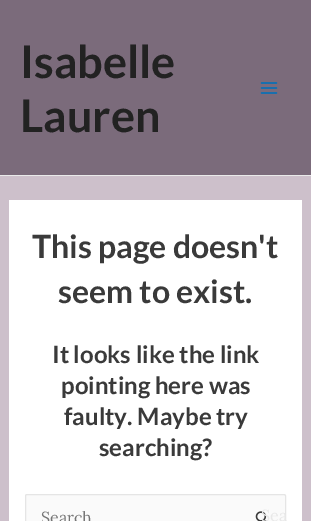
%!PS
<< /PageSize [311 521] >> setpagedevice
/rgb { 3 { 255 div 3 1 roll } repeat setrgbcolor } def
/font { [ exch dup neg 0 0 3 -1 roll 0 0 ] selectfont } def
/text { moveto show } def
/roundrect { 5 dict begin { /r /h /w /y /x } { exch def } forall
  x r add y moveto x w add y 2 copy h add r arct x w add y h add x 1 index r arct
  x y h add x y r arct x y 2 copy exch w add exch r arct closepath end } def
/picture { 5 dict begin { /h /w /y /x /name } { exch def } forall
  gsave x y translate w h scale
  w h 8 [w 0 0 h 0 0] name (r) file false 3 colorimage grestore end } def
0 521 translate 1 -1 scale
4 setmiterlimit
205 192 203 rgb
0 0 311 521 rectfill
123 107 123 rgb
0 0 311 175 rectfill
234 234 234 rgb
0 175 311 1 rectfill
(img_01.rgb) 260 82 18 12 picture
255 255 255 rgb
9 200 293 321 rectfill
250 250 250 rgb
25.5 494.5 260 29 1.5 roundrect gsave fill grestore
229 229 229 rgb
stroke
(img_02.rgb) 255 511 12 10 picture
/Lato-Bold 45 font
34 34 34 rgb
(Isabelle) 20 78 text
(Lauren) 20 132 text
/Lato-Bold 32 font
58 58 58 rgb
(This page doesn't) 32 258 text
(seem to exist.) 58 303 text
/Lato-Bold 24 font
(It looks like the link) 52 363 text
(pointing here was) 61 394 text
(faulty. Maybe try) 64 425 text
(searching?) 99 456 text
/Lora-Regular 16 font
117 117 117 rgb
(Search) 41 523 text
232 232 232 rgb
(Sea) 261 521 text
showpage
